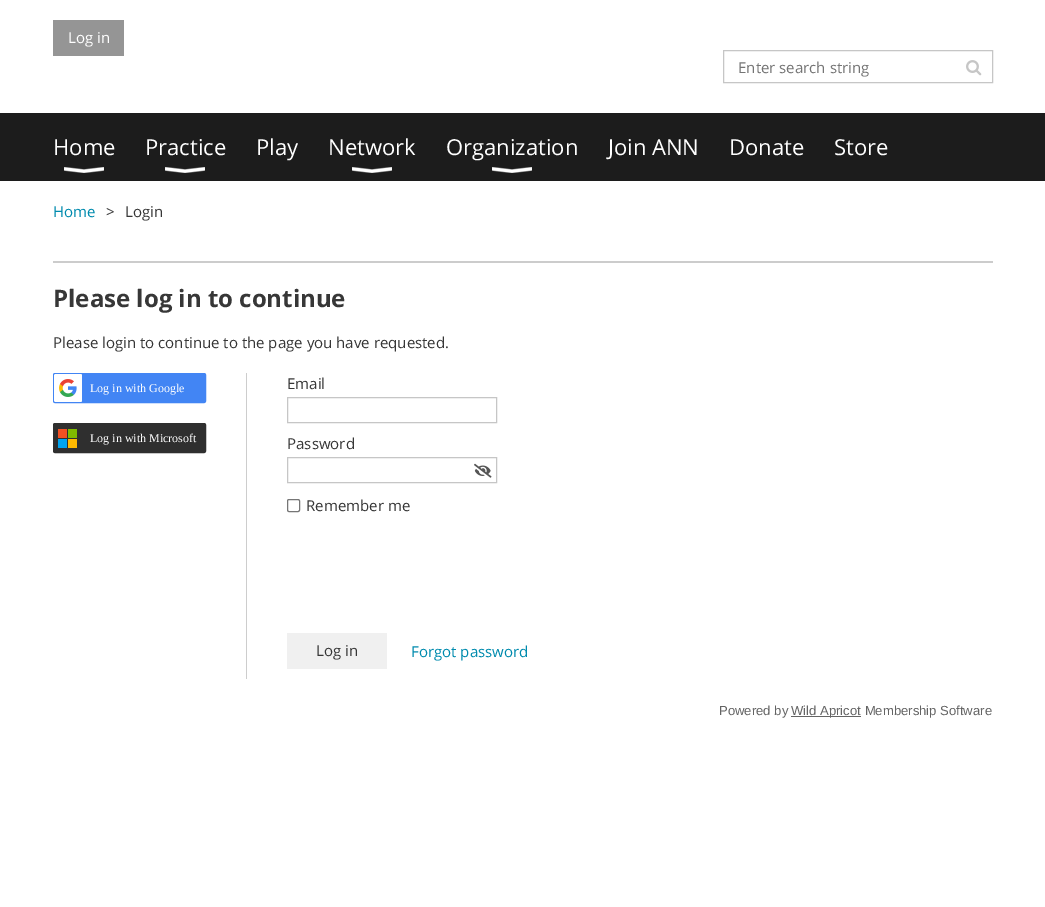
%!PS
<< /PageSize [1045 907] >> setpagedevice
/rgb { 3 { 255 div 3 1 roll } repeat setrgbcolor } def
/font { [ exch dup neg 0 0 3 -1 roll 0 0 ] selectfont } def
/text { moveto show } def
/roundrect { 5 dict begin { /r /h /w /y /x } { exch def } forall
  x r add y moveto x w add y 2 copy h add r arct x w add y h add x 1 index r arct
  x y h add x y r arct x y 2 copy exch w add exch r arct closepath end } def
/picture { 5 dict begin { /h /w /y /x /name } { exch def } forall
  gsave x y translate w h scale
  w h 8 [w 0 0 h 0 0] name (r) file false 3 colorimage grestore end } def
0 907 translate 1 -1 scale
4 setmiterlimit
255 255 255 rgb
0 0 1045 907 rectfill
149 149 149 rgb
53 20 71 36 rectfill
198 198 198 rgb
723.5 50.5 269 32 rectstroke
(img_01.rgb) 966 60 16 16 picture
28 28 28 rgb
0 113 1045 68 rectfill
(img_02.rgb) 64 167 40 6 picture
(img_02.rgb) 165 167 40 6 picture
(img_02.rgb) 352 167 40 6 picture
(img_02.rgb) 492 167 40 6 picture
204 204 204 rgb
53 261 940 2 rectfill
205 205 205 rgb
246 373 1 306 rectfill
66 133 244 rgb
53.5 373.5 152 29 1.5 roundrect gsave fill grestore
stroke
(img_03.rgb) 54 374 28 28 picture
47 47 47 rgb
53.5 423.5 152 29 1.5 roundrect gsave fill grestore
stroke
242 80 34 rgb
58 429 9 9 rectfill
0 164 239 rgb
58 439 9 9 rectfill
127 186 0 rgb
68 429 9 9 rectfill
255 185 0 rgb
68 439 9 9 rectfill
198 198 198 rgb
287.5 397.5 209 25 rectstroke
287.5 457.5 209 25 rectstroke
(img_04.rgb) 474 463 18 15 picture
118 118 118 rgb
287.5 499.5 12 12 1.5 roundrect stroke
240 240 240 rgb
287 633 100 36 rectfill
100 100 100 rgb
791 716 70 1 rectfill
/OpenSans-Regular 15 font
255 255 255 rgb
(Log in) 68 43 text
117 117 117 rgb
(Enter search string) 738 73 text
/OpenSans-Regular 22 font
255 255 255 rgb
(Home) 53 155 text
(Practice) 145 155 text
(Play) 256 155 text
(Network) 328 155 text
(Organization) 446 155 text
(Join ANN) 608 155 text
(Donate) 729 155 text
(Store) 834 155 text
/OpenSans-Regular 15 font
0 139 174 rgb
(Home) 53 217 text
55 55 55 rgb
(>) 106 217 text
(Login) 125 217 text
/OpenSans-Bold 24 font
(Please log in to continue) 53 307 text
/OpenSans-Regular 15 font
(Please login to continue to the page you have requested.) 53 348 text
/LiberationSerif-Regular 12 font
255 255 255 rgb
(Log in with Google) 90 392 text
(Log in with Microsoft) 90 442 text
/OpenSans-Regular 15 font
55 55 55 rgb
(Email) 287 389 text
(Password) 287 449 text
(Remember me) 306 511 text
(Log in) 316 656 text
0 139 174 rgb
(Forgot password) 411 657 text
/LiberationSans-Regular 13.1 font
100 100 100 rgb
(Powered by) 719 715 text
(Wild Apricot Membership Software) 791 715 text
showpage
